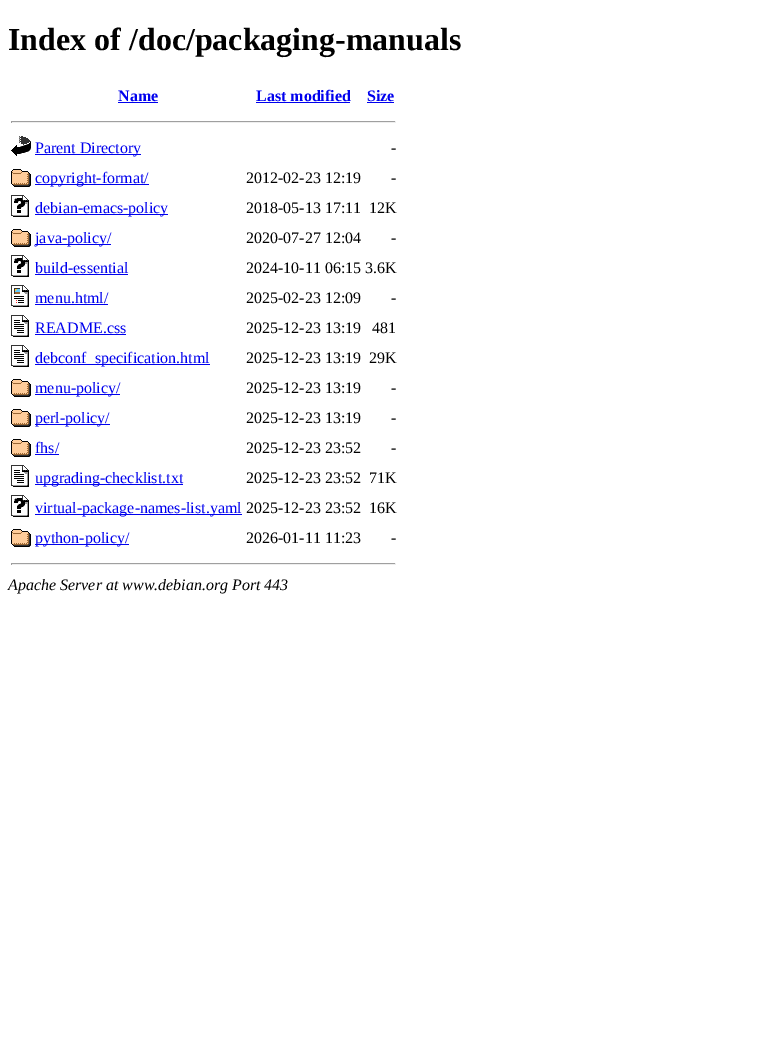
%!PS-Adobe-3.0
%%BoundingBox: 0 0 779 1041
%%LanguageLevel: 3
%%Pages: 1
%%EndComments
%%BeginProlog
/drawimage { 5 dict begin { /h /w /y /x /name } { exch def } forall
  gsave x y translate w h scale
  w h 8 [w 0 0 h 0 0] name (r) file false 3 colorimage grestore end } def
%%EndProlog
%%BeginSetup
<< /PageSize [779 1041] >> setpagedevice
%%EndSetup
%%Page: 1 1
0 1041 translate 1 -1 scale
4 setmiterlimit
1 setgray
0 0 779 1041 rectfill
0 0 0.933 setrgbcolor
118 102 40 1 rectfill
256 102 94 1 rectfill
367 102 27 1 rectfill
0.624 setgray
11 121 385 1 rectfill
0.933 setgray
395 121 1 2 rectfill
11 122 385 1 rectfill
0.624 setgray
11 121 1 2 rectfill
(images/1.raw) 11 136 20 20 drawimage
0 0 0.933 setrgbcolor
35 154 106 1 rectfill
(images/2.raw) 11 169 20 18 drawimage
35 184 114 1 rectfill
(images/3.raw) 11 195 18 22 drawimage
35 214 133 1 rectfill
(images/2.raw) 11 229 20 18 drawimage
35 244 76 1 rectfill
(images/3.raw) 11 255 18 22 drawimage
35 274 93 1 rectfill
(images/4.raw) 11 285 18 22 drawimage
35 304 73 1 rectfill
(images/5.raw) 11 315 18 22 drawimage
35 334 91 1 rectfill
(images/5.raw) 11 345 18 22 drawimage
35 364 175 1 rectfill
(images/2.raw) 11 379 20 18 drawimage
35 394 85 1 rectfill
(images/2.raw) 11 409 20 18 drawimage
35 424 75 1 rectfill
(images/2.raw) 11 439 20 18 drawimage
35 454 24 1 rectfill
(images/5.raw) 11 465 18 22 drawimage
35 484 148 1 rectfill
(images/3.raw) 11 495 18 22 drawimage
35 514 207 1 rectfill
(images/2.raw) 11 529 20 18 drawimage
35 544 94 1 rectfill
0.624 setgray
11 563 385 1 rectfill
0.933 setgray
395 563 1 2 rectfill
11 564 385 1 rectfill
0.624 setgray
11 563 1 2 rectfill
/LiberationSerif-Bold [32 0 0 -32 0 0] selectfont
0 setgray
8 50 moveto (Index of /doc/packaging-manuals) show
/LiberationSerif-Bold [16 0 0 -16 0 0] selectfont
0 0 0.933 setrgbcolor
118 101 moveto (Name) show
256 101 moveto (Last modified) show
367 101 moveto (Size) show
/LiberationSerif-Regular [16 0 0 -16 0 0] selectfont
35 153 moveto (Parent Directory) show
0 setgray
391 153 moveto (-) show
0 0 0.933 setrgbcolor
35 183 moveto (copyright-format/) show
0 setgray
246 183 moveto (2012-02-23 12:19) show
391 183 moveto (-) show
0 0 0.933 setrgbcolor
35 213 moveto (debian-emacs-policy) show
0 setgray
246 213 moveto (2018-05-13 17:11) show
369 213 moveto (12K) show
0 0 0.933 setrgbcolor
35 243 moveto (java-policy/) show
0 setgray
246 243 moveto (2020-07-27 12:04) show
391 243 moveto (-) show
0 0 0.933 setrgbcolor
35 273 moveto (build-essential) show
0 setgray
246 273 moveto (2024-10-11 06:15 3.6K) show
0 0 0.933 setrgbcolor
35 303 moveto (menu.html/) show
0 setgray
246 303 moveto (2025-02-23 12:09) show
391 303 moveto (-) show
0 0 0.933 setrgbcolor
35 333 moveto (README.css) show
0 setgray
246 333 moveto (2025-12-23 13:19) show
372 333 moveto (481) show
0 0 0.933 setrgbcolor
35 363 moveto (debconf_specification.html) show
0 setgray
246 363 moveto (2025-12-23 13:19) show
369 363 moveto (29K) show
0 0 0.933 setrgbcolor
35 393 moveto (menu-policy/) show
0 setgray
246 393 moveto (2025-12-23 13:19) show
391 393 moveto (-) show
0 0 0.933 setrgbcolor
35 423 moveto (perl-policy/) show
0 setgray
246 423 moveto (2025-12-23 13:19) show
391 423 moveto (-) show
0 0 0.933 setrgbcolor
35 453 moveto (fhs/) show
0 setgray
246 453 moveto (2025-12-23 23:52) show
391 453 moveto (-) show
0 0 0.933 setrgbcolor
35 483 moveto (upgrading-checklist.txt) show
0 setgray
246 483 moveto (2025-12-23 23:52) show
369 483 moveto (71K) show
0 0 0.933 setrgbcolor
35 513 moveto (virtual-package-names-list.yaml) show
0 setgray
246 513 moveto (2025-12-23 23:52) show
369 513 moveto (16K) show
0 0 0.933 setrgbcolor
35 543 moveto (python-policy/) show
0 setgray
246 543 moveto (2026-01-11 11:23) show
391 543 moveto (-) show
/LiberationSerif-Italic [16 0 0 -16 0 0] selectfont
8 590 moveto (Apache Server at www.debian.org Port 443) show
showpage
%%EOF
